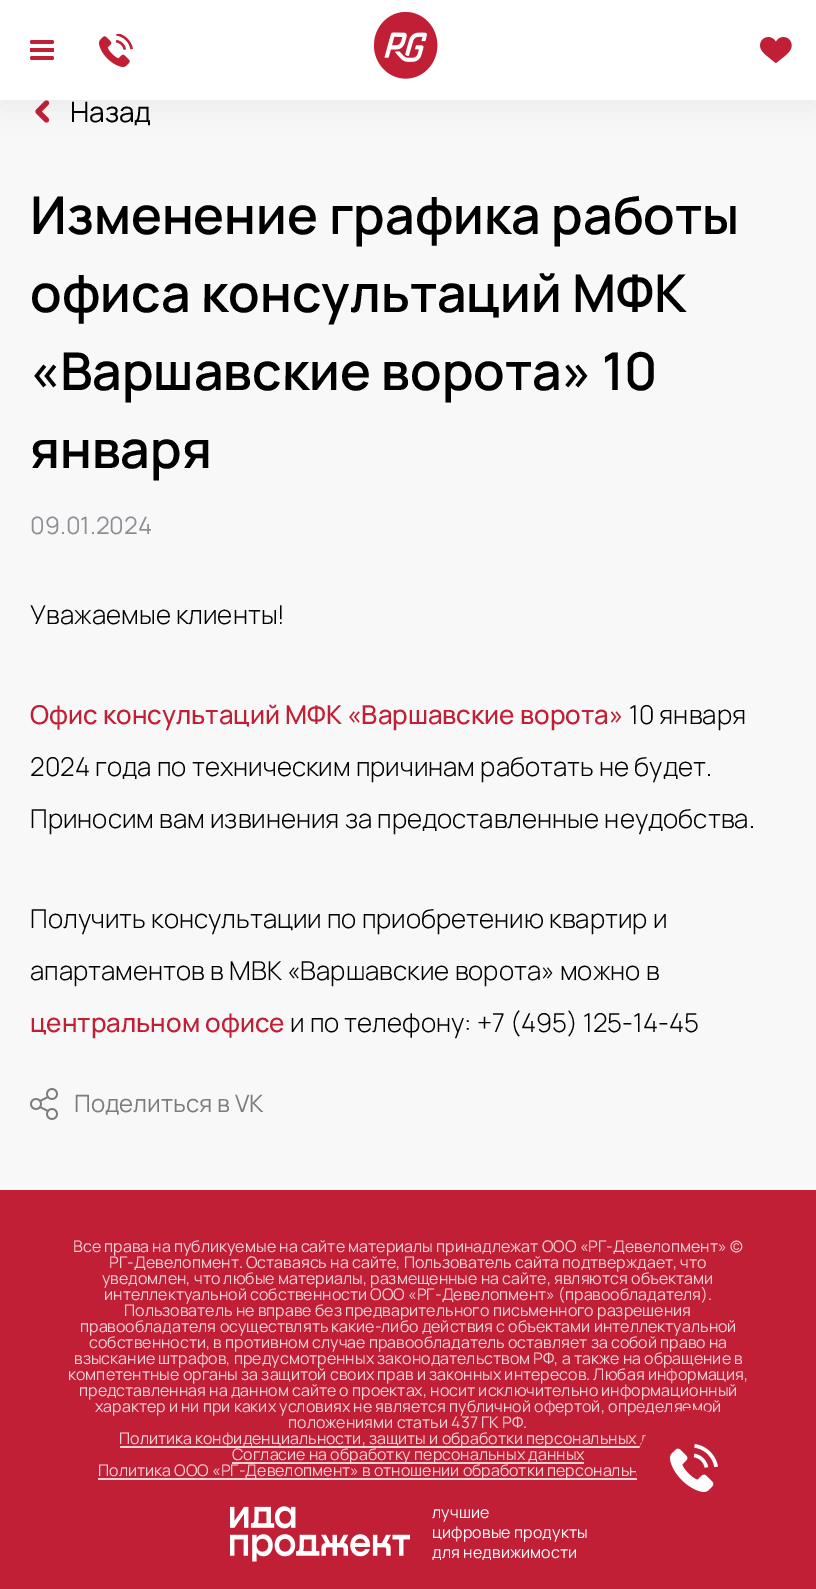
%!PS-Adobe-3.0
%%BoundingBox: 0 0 816 1589
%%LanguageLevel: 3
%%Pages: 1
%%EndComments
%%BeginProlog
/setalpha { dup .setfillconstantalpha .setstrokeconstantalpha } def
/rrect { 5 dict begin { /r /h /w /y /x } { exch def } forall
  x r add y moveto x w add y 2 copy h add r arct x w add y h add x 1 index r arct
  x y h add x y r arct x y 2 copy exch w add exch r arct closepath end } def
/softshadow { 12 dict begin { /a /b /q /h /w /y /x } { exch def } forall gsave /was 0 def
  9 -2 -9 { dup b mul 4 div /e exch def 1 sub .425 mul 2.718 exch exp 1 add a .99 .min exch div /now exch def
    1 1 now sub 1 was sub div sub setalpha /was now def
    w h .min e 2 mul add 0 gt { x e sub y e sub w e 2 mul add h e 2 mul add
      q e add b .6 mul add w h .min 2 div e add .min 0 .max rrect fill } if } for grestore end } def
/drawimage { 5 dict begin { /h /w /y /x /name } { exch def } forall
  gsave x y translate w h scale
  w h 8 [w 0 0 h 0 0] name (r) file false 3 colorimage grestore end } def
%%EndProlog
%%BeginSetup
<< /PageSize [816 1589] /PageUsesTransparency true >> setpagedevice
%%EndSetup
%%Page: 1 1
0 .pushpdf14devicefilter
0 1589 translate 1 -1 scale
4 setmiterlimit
0.973 setgray
0 0 816 1589 rectfill
0.757 0.122 0.212 setrgbcolor
5.1 setlinewidth
1 setlinecap
1 setlinejoin
newpath 46.5 120 moveto 38 111.5 lineto 46.5 103 lineto stroke
0 setgray
0 8 816 100 0 15 0.05 softshadow
1 setgray
0 0 816 100 rectfill
0.757 0.122 0.212 setrgbcolor
30 40 24 4 2 rrect fill
30 48 24 4 rectfill
30 56 24 4 2 rrect fill
(images/1.raw) 99 34 34 33 drawimage
(images/2.raw) 374 12 64 67 drawimage
(images/3.raw) 760 37 32 26 drawimage
(images/4.raw) 30 1088 28 32 drawimage
0 1190 816 399 rectfill
0.953 0.824 0.843 setrgbcolor
120 1446 521 2 rectfill
232 1462 352 2 rectfill
98 1478 540 2 rectfill
(images/5.raw) 230 1506 180 56 drawimage
/Manrope-Regular [28 0 0 -28 0 0] selectfont
0 setgray
70 122 moveto (Назад) show
/Manrope-SemiBold [52 0 0 -52 0 0] selectfont
30 234 moveto (Изменение графика работы) show
30 312 moveto (офиса консультаций МФК) show
30 390 moveto («Варшавские ворота» 10) show
30 468 moveto (января) show
/Manrope-Regular [24 0 0 -24 0 0] selectfont
0.545 0.557 0.58 setrgbcolor
30 534 moveto (09.01.2024) show
/Manrope-Light [26 0 0 -26 0 0] selectfont
0 setgray
30 624 moveto (Уважаемые клиенты!) show
/Manrope-Medium [26 0 0 -26 0 0] selectfont
0.757 0.122 0.212 setrgbcolor
30 724 moveto (Офис консультаций МФК «Варшавские ворота») show
/Manrope-Light [26 0 0 -26 0 0] selectfont
0 setgray
629 724 moveto (10 января) show
30 776 moveto (2024 года по техническим причинам работать не будет.) show
30 828 moveto (Приносим вам извинения за предоставленные неудобства.) show
30 928 moveto (Получить консультации по приобретению квартир и) show
30 980 moveto (апартаментов в МВК «Варшавские ворота» можно в) show
/Manrope-Medium [26 0 0 -26 0 0] selectfont
0.757 0.122 0.212 setrgbcolor
30 1032 moveto (центральном офисе) show
/Manrope-Light [26 0 0 -26 0 0] selectfont
0 setgray
290 1032 moveto (и по телефону: +7 \(495\) 125-14-45) show
/Manrope-Regular [24 0 0 -24 0 0] selectfont
0.486 setgray
74 1112 moveto (Поделиться в VK) show
/Manrope-Regular [16 0 0 -16 0 0] selectfont
0.953 0.824 0.843 setrgbcolor
73 1252 moveto (Все права на публикуемые на сайте материалы принадлежат ООО «РГ-Девелопмент» ©) show
109 1268 moveto (РГ-Девелопмент. Оставаясь на сайте, Пользователь сайта подтверждает, что) show
102 1284 moveto (уведомлен, что любые материалы, размещенные на сайте, являются объектами) show
104 1300 moveto (интеллектуальной собственности ООО «РГ-Девелопмент» \(правообладателя\).) show
124 1316 moveto (Пользователь не вправе без предварительного письменного разрешения) show
80 1332 moveto (правообладателя осуществлять какие-либо действия с объектами интеллектуальной) show
89 1348 moveto (собственности, в противном случае правообладатель оставляет за собой право на) show
74 1364 moveto (взыскание штрафов, предусмотренных законодательством РФ, а также на обращение в) show
68 1380 moveto (компетентные органы за защитой своих прав и законных интересов. Любая информация,) show
79 1396 moveto (представленная на данном сайте о проектах, носит исключительно информационный) show
95 1412 moveto (характер и ни при каких условиях не является публичной офертой, определяемой) show
288 1428 moveto (положениями статьи 437 ГК РФ.) show
119 1444 moveto (Политика конфиденциальности, защиты и обработки персональных д) show
232 1460 moveto (Согласие на обработку персональных данных) show
98 1476 moveto (Политика ООО «РГ-Девелопмент» в отношении обработки персональн) show
1 setgray
432 1518 moveto 0.1 0 (лучшие) ashow
432 1538 moveto 0.1 0 (цифровые продукты) ashow
432 1558 moveto 0.1 0 (для недвижимости) ashow
0.757 0.122 0.212 setrgbcolor
newpath 696 1470 56 0 360 arc closepath fill
newpath 694 1468 58 0 360 arc closepath fill
(images/6.raw) 670 1444 48 48 drawimage
.poppdf14devicefilter showpage
%%EOF
